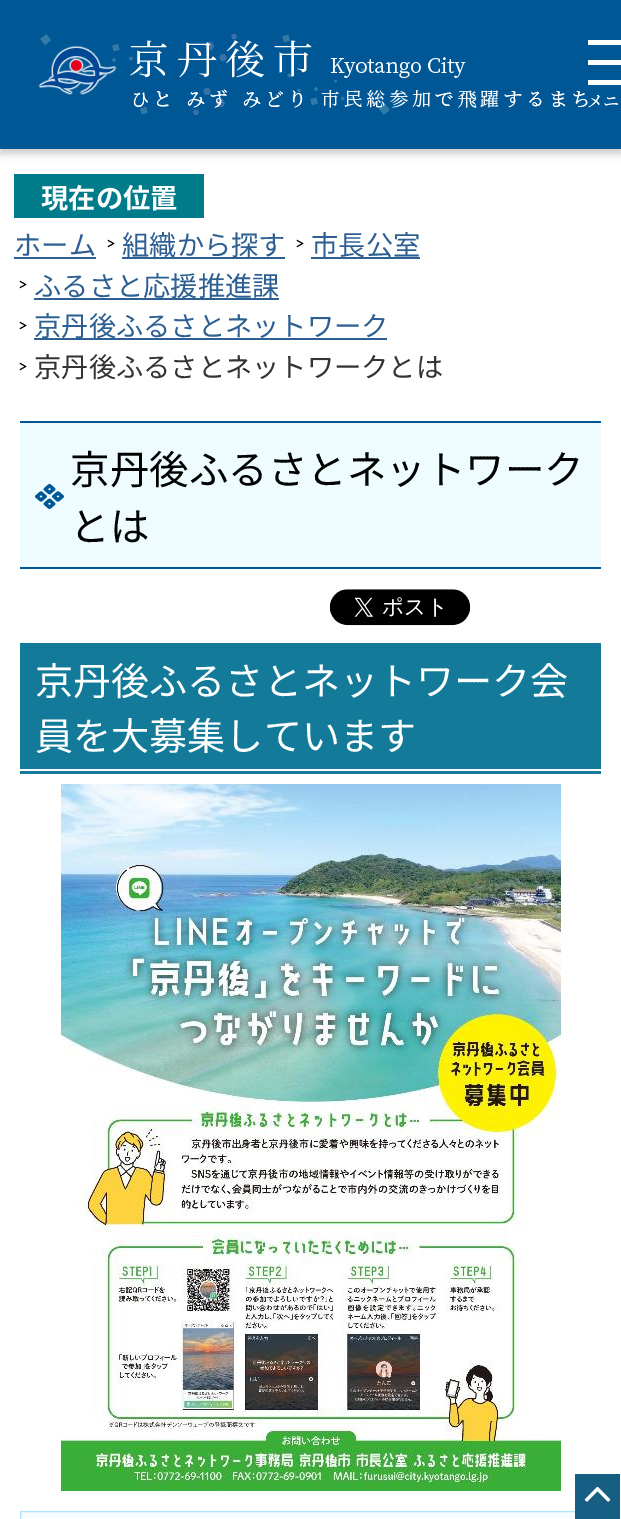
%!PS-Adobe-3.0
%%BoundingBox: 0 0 621 1519
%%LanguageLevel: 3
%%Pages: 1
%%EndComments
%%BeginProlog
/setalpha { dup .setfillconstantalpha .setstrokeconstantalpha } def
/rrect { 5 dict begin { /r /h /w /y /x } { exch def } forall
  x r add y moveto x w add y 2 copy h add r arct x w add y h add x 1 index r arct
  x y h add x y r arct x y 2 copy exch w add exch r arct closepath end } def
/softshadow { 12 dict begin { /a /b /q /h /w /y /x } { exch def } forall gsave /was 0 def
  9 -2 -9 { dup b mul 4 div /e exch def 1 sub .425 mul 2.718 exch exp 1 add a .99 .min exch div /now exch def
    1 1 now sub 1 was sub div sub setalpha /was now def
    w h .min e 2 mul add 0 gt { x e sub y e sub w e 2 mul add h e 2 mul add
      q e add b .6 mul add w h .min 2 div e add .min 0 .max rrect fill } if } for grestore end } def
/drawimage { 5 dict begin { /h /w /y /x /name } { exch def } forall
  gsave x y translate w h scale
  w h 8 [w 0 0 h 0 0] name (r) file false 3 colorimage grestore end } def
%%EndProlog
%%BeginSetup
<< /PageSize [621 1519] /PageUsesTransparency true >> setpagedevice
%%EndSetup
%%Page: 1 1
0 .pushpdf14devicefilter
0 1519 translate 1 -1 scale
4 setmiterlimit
1 setgray
0 0 621 1519 rectfill
0 setgray
0 3 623 151 0 4 0.2 softshadow
0 0.341 0.588 setrgbcolor
0 0 621 149 rectfill
(images/1.raw) 38 34 550 81 drawimage
(images/2.raw) 588 40 33 68 drawimage
0 0.482 0.541 setrgbcolor
14 174 190 44 rectfill
0.176 0.373 0.573 setrgbcolor
14 257 82 2 rectfill
(images/3.raw) 107 239 8 9 drawimage
122 257 163 2 rectfill
(images/3.raw) 296 239 8 9 drawimage
311 257 109 2 rectfill
(images/3.raw) 19 280 8 9 drawimage
34 298 245 2 rectfill
(images/3.raw) 19 321 8 9 drawimage
34 338 353 2 rectfill
(images/3.raw) 19 362 8 9 drawimage
0.933 0.988 1 setrgbcolor
20 423 581 144 rectfill
0 0.341 0.584 setrgbcolor
20 421 581 2 rectfill
20 567 581 2 rectfill
(images/4.raw) 35 484 29 25 drawimage
(images/5.raw) 329 589 142 37 drawimage
0.075 0.482 0.6 setrgbcolor
20 643 581 131 rectfill
1 setgray
20 769 581 2 rectfill
(images/6.raw) 61 784 500 707 drawimage
0.965 0.988 1 setrgbcolor
20 1512 555 7 rectfill
0.675 0.89 1 setrgbcolor
20.5 1511.5 580 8 rectstroke
(images/7.raw) 575 1474 45 45 drawimage
/NotoSansCJKJP-Bold [27.25 0 0 -27.25 0 0] selectfont
1 setgray
41 208 moveto (現在の位置) show
/NotoSansCJKJP-Regular [27.25 0 0 -27.25 0 0] selectfont
0.176 0.373 0.573 setrgbcolor
14 255 moveto (ホーム) show
122 255 moveto (組織から探す) show
311 255 moveto (市長公室) show
34 296 moveto (ふるさと応援推進課) show
34 336 moveto (京丹後ふるさとネットワーク) show
0.2 setgray
34 377 moveto (京丹後ふるさとネットワークとは) show
/NotoSansCJKJP-Regular [39.5 0 0 -39.5 0 0] selectfont
0 0.012 0.008 setrgbcolor
70 484 moveto (京丹後ふるさとネットワーク) show
70 541 moveto (とは) show
/NotoSansCJKJP-Regular [38.1 0 0 -38.1 0 0] selectfont
1 setgray
35 695 moveto (京丹後ふるさとネットワーク会) show
35 750 moveto (員を大募集しています) show
.poppdf14devicefilter showpage
%%EOF
